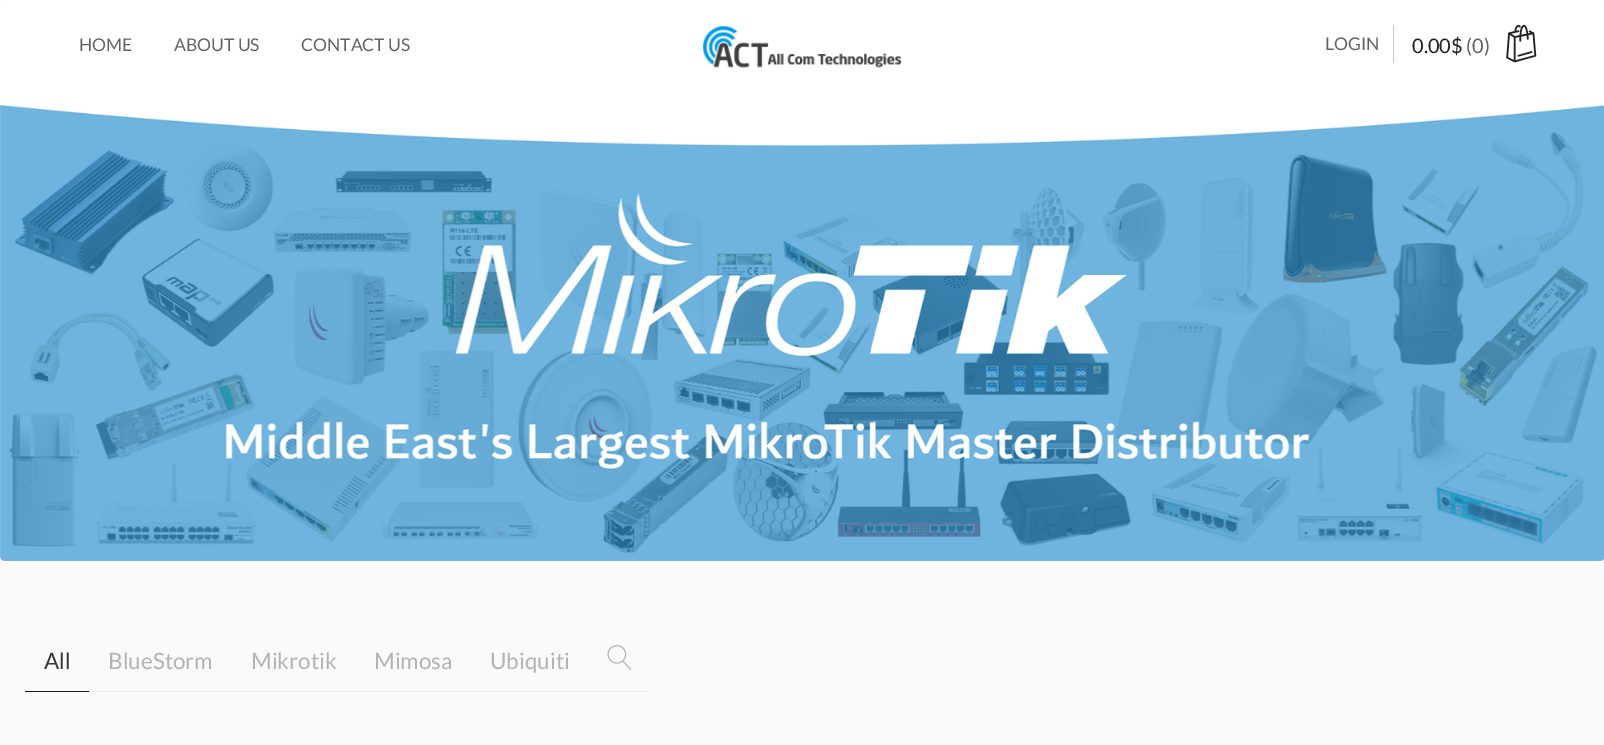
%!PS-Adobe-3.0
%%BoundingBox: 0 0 1604 745
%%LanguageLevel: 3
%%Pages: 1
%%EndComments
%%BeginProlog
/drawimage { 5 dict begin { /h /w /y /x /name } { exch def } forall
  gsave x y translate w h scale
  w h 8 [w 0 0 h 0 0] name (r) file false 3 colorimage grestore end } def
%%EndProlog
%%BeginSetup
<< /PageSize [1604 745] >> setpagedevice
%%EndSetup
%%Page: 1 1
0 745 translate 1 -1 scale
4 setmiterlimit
0.98 setgray
0 0 1604 745 rectfill
(images/1.raw) 0 0 1604 561 drawimage
(images/2.raw) 703 26 199 42 drawimage
0.792 setgray
1393 25 1 38 rectfill
(images/3.raw) 1506 24 31 39 drawimage
0.098 setgray
25 691 64 1 rectfill
0.933 setgray
89 691 562 1 rectfill
(images/4.raw) 607 645 25 25 drawimage
/Lato-Regular [17.5 0 0 -17.5 0 0] selectfont
0.392 setgray
79 51 moveto (HOME) show
174 51 moveto (ABOUT US) show
301 51 moveto (CONTACT US) show
1325 50 moveto (LOGIN) show
/Lato-Regular [20 0 0 -20 0 0] selectfont
0.133 setgray
1412 53 moveto (0.00$) show
0.392 setgray
1466 53 moveto (\(0\)) show
/Lato-Regular [22.5 0 0 -22.5 0 0] selectfont
0.22 setgray
44 669 moveto (All) show
0.702 setgray
108 669 moveto (BlueStorm) show
251 669 moveto (Mikrotik) show
374 669 moveto (Mimosa) show
490 669 moveto (Ubiquiti) show
showpage
%%EOF
